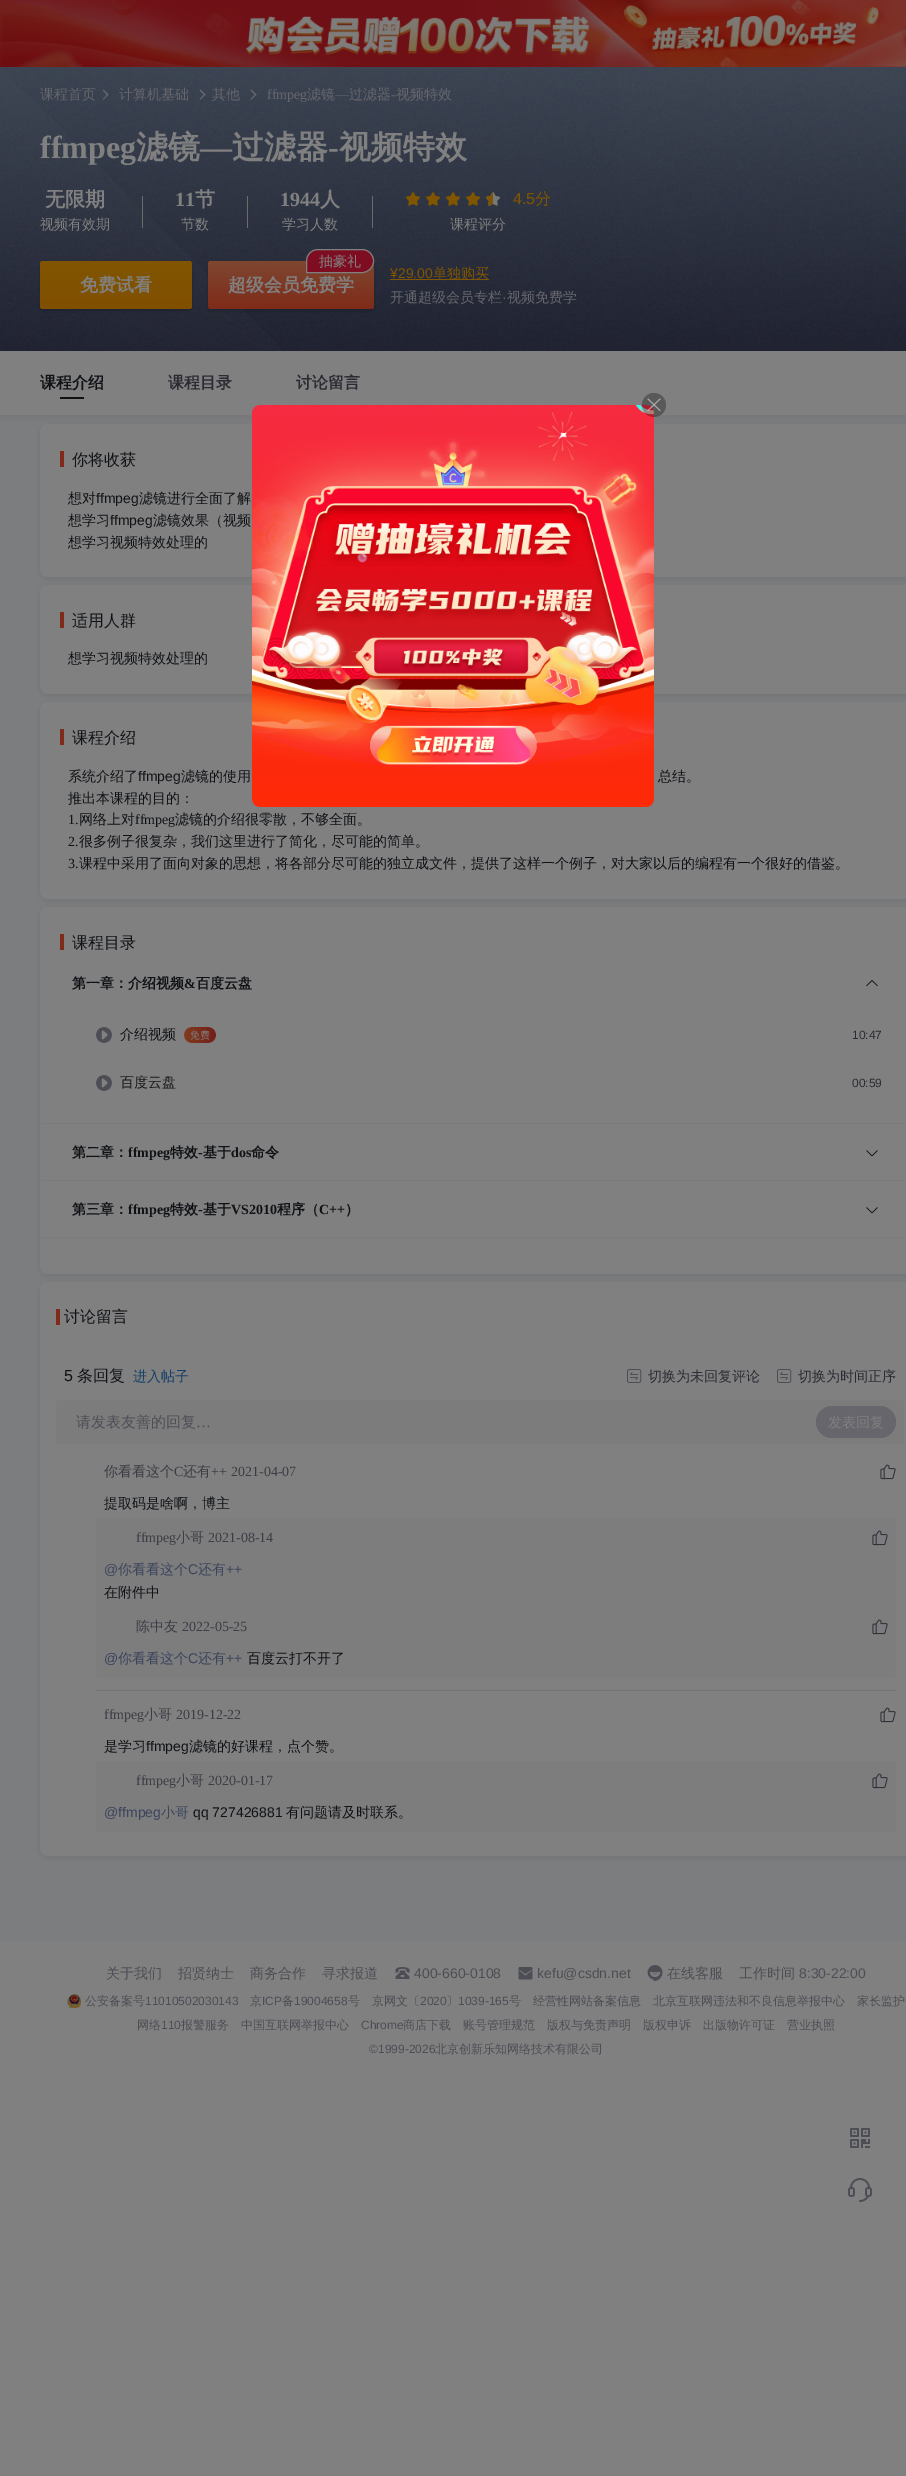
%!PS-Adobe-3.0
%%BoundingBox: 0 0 906 2476
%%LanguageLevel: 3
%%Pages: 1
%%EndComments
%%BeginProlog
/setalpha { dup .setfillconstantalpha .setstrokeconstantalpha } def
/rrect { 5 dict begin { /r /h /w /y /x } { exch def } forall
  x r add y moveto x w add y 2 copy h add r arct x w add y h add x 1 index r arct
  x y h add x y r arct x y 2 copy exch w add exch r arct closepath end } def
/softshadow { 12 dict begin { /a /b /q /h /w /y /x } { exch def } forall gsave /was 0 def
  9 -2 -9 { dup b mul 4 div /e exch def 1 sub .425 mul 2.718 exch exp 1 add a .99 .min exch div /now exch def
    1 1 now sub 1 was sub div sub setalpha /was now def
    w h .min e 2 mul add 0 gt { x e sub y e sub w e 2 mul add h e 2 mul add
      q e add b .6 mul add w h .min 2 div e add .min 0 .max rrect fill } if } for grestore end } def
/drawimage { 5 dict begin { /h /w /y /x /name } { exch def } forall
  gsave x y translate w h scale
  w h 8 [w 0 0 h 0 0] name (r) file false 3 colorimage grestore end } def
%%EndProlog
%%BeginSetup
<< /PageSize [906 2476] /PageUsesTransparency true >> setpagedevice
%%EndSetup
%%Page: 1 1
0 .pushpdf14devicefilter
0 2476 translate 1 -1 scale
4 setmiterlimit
0.502 setgray
0 0 906 2476 rectfill
(images/1.raw) 0 0 906 67 drawimage
(images/2.raw) 0 67 906 284 drawimage
0.4 0.4 0.424 setrgbcolor
newpath 103.5 89.5 moveto 108.5 94.5 lineto 107.5 95.5 lineto 103 90.5 lineto closepath fill
newpath 107.5 94 moveto 108.5 94.5 lineto 103.5 99.5 lineto 103 99 lineto closepath fill
newpath 200.5 89.5 moveto 205.5 94.5 lineto 204.5 95.5 lineto 199.5 90.5 lineto closepath fill
newpath 204.5 94 moveto 205.5 94.5 lineto 200.5 99.5 lineto 199.5 99 lineto closepath 251.5 89.5 moveto 256.5 94.5 lineto 255.5 95.5 lineto 250.5 90.5 lineto closepath fill
newpath 255.5 94 moveto 256.5 94.5 lineto 251.5 99.5 lineto 250.5 99 lineto closepath fill
0.424 setgray
142 196 1 32 rectfill
247 196 1 32 rectfill
372 196 1 32 rectfill
(images/3.raw) 406 192 14 14 drawimage
(images/4.raw) 426 192 14 14 drawimage
(images/5.raw) 446 192 14 14 drawimage
(images/6.raw) 466 192 14 14 drawimage
(images/7.raw) 486 192 14 14 drawimage
(images/8.raw) 486 192 7 14 drawimage
0 setgray
40 263 152 48 4 2 0.2 softshadow
gsave 40 261 152 48 4 rrect clip newpath
<< /ShadingType 2 /ColorSpace /DeviceRGB /Coords [116 309 116 261] /Extend [true true] /Function << /FunctionType 2 /Domain [0 1] /C0 [0.502 0.314 0] /C1 [0.502 0.333 0] /N 1 >> >> shfill grestore
208 263 166 48 4 2 0.2 softshadow
gsave 208 261 166 48 4 rrect clip newpath
<< /ShadingType 2 /ColorSpace /DeviceRGB /Coords [291 261 291 309] /Extend [true true] /Function << /FunctionType 2 /Domain [0 1] /C0 [0.498 0.278 0.188] /C1 [0.494 0.169 0.098] /N 1 >> >> shfill grestore
0.494 0.051 0.133 setrgbcolor
newpath 318 249.5 moveto 362 249.5 lineto 368.5 249.5 373.5 254.5 373.5 261 curveto 373.5 267.5 368.5 272.5 362 272.5 curveto 306.5 272.5 lineto 306.5 261 lineto 306.5 254.5 311.5 249.5 318 249.5 curveto closepath gsave fill grestore
0.502 setgray
stroke
0.502 0.333 0 setrgbcolor
390 279 99 1 rectfill
0.067 0.067 0.075 setrgbcolor
60 397 24 2 1 rrect fill
gsave newpath 0 415 moveto 906 415 lineto 906 423 lineto 0 423 lineto closepath clip newpath
<< /ShadingType 2 /ColorSpace /DeviceRGB /Coords [640 415 640 423] /Extend [true true] /Function << /FunctionType 2 /Domain [0 1] /C0 [0.471 0.471 0.482] /C1 [0.486 0.49 0.494] /N 1 >> >> shfill grestore
0.486 0.49 0.494 setrgbcolor
0 423 906 1518 rectfill
0.016 0.035 0.055 setrgbcolor
40 426 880 153 8 4 0.1 softshadow
0.502 setgray
40 424 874 153 8 rrect fill
0.016 0.035 0.055 setrgbcolor
40 587 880 109 8 4 0.1 softshadow
0.502 setgray
40 585 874 109 8 rrect fill
0.016 0.035 0.055 setrgbcolor
40 704 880 197 8 4 0.1 softshadow
0.502 setgray
40 702 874 197 8 rrect fill
(images/10.raw) 252 405 402 402 drawimage
0.3 setalpha
0 setgray
newpath 654 405 12 0 360 arc closepath fill
1 setalpha
(images/9.raw) 647 398 14 13 drawimage
0.494 0.169 0.098 setrgbcolor
60 451 4 16 rectfill
60 612 4 16 rectfill
60 729 4 16 rectfill
0.016 0.035 0.055 setrgbcolor
40 1284 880 574 8 4 0.1 softshadow
0.502 setgray
40 1282 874 574 8 rrect fill
0.016 0.035 0.055 setrgbcolor
40 909 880 367 8 4 0.1 softshadow
0.502 setgray
40 907 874 367 8 rrect fill
0.494 0.169 0.098 setrgbcolor
60 934 4 16 rectfill
0.482 0.482 0.486 setrgbcolor
41 1123 865 1 rectfill
(images/11.raw) 866 980 12 7 drawimage
(images/12.raw) 96 1027 16 16 drawimage
(images/13.raw) 184 1027 32 16 drawimage
(images/12.raw) 96 1075 16 16 drawimage
41 1180 865 1 rectfill
(images/14.raw) 866 1150 12 7 drawimage
41 1237 865 1 rectfill
(images/14.raw) 866 1207 12 7 drawimage
0.494 0.169 0.098 setrgbcolor
56 1309 4 16 rectfill
(images/15.raw) 627 1369 15 14 drawimage
(images/15.raw) 777 1369 15 14 drawimage
0.486 0.486 0.49 setrgbcolor
56 1400 848 44 4 rrect fill
0.4 0.4 0.424 setrgbcolor
816 1406 80 32 16 rrect fill
(images/16.raw) 880 1464 16 16 drawimage
0.49 0.49 0.494 setrgbcolor
96 1518 800 160 4 rrect fill
(images/17.raw) 872 1530 16 16 drawimage
(images/17.raw) 872 1619 16 16 drawimage
0.455 0.455 0.467 setrgbcolor
96 1690 800 1 rectfill
(images/16.raw) 880 1707 16 16 drawimage
0.49 0.49 0.494 setrgbcolor
96 1761 800 71 4 rrect fill
(images/17.raw) 872 1773 16 16 drawimage
(images/18.raw) 850 2128 20 20 drawimage
(images/19.raw) 848 2178 24 24 drawimage
(images/20.raw) 395 1967 15 12 drawimage
(images/21.raw) 518 1967 15 13 drawimage
(images/22.raw) 647 1965 16 16 drawimage
(images/23.raw) 67 1994 14 14 drawimage
/WenQuanYiZenHei-Medium [14 0 0 -14 0 0] selectfont
0.4 0.4 0.424 setrgbcolor
40 99 moveto (课程首页) show
119 99 moveto (计算机基础) show
212 99 moveto (其他) show
/LiberationSerif-Regular [14 0 0 -14 0 0] selectfont
267 99 moveto (ffmpeg) show
/WenQuanYiZenHei-Medium [14 0 0 -14 0 0] selectfont
307 99 moveto (滤镜) show
/LiberationSerif-Regular [14 0 0 -14 0 0] selectfont
335 99 moveto (—) show
/WenQuanYiZenHei-Medium [14 0 0 -14 0 0] selectfont
349 99 moveto (过滤器) show
/LiberationSerif-Regular [14 0 0 -14 0 0] selectfont
391 99 moveto (-) show
/WenQuanYiZenHei-Medium [14 0 0 -14 0 0] selectfont
396 99 moveto (视频特效) show
/LiberationSerif-Bold [32 0 0 -32 0 0] selectfont
0.502 setgray
40 158 moveto (ffmpeg) show
/WenQuanYiZenHei-Bold [32 0 0 -32 0 0] selectfont
136 158 moveto (滤镜) show
/LiberationSerif-Bold [32 0 0 -32 0 0] selectfont
200 158 moveto (—) show
/WenQuanYiZenHei-Bold [32 0 0 -32 0 0] selectfont
232 158 moveto (过滤器) show
/LiberationSerif-Bold [32 0 0 -32 0 0] selectfont
328 158 moveto (-) show
/WenQuanYiZenHei-Bold [32 0 0 -32 0 0] selectfont
339 158 moveto (视频特效) show
/WenQuanYiZenHei-Bold [20 0 0 -20 0 0] selectfont
45 206 moveto (无限期) show
/WenQuanYiZenHei-Medium [14 0 0 -14 0 0] selectfont
40 229 moveto (视频有效期) show
/LiberationSerif-Bold [20 0 0 -20 0 0] selectfont
175 206 moveto (11) show
/WenQuanYiZenHei-Bold [20 0 0 -20 0 0] selectfont
195 206 moveto (节) show
/WenQuanYiZenHei-Medium [14 0 0 -14 0 0] selectfont
181 229 moveto (节数) show
/LiberationSerif-Bold [20 0 0 -20 0 0] selectfont
280 206 moveto (1944) show
/WenQuanYiZenHei-Bold [20 0 0 -20 0 0] selectfont
320 206 moveto (人) show
/WenQuanYiZenHei-Medium [14 0 0 -14 0 0] selectfont
282 229 moveto (学习人数) show
/LiberationSans-Regular [16 0 0 -16 0 0] selectfont
0.502 0.333 0 setrgbcolor
513 204 moveto (4.5) show
/WenQuanYiZenHei-Medium [16 0 0 -16 0 0] selectfont
535 204 moveto (分) show
/WenQuanYiZenHei-Medium [14 0 0 -14 0 0] selectfont
0.502 setgray
450 229 moveto (课程评分) show
/WenQuanYiZenHei-Bold [18 0 0 -18 0 0] selectfont
80 291 moveto (免费试看) show
/WenQuanYiZenHei-Medium [14 0 0 -14 0 0] selectfont
319 266 moveto (抽豪礼) show
/WenQuanYiZenHei-Bold [18 0 0 -18 0 0] selectfont
228 291 moveto (超级会员免费学) show
/LiberationSans-Regular [14 0 0 -14 0 0] selectfont
0.502 0.333 0 setrgbcolor
390 278 moveto (¥29.00) show
/WenQuanYiZenHei-Medium [14 0 0 -14 0 0] selectfont
433 278 moveto (单独购买) show
0.4 0.4 0.424 setrgbcolor
390 302 moveto (开通超级会员专栏) show
/LiberationSans-Regular [14 0 0 -14 0 0] selectfont
502 302 moveto (·) show
/WenQuanYiZenHei-Medium [14 0 0 -14 0 0] selectfont
507 302 moveto (视频免费学) show
/WenQuanYiZenHei-Bold [16 0 0 -16 0 0] selectfont
0.063 0.071 0.086 setrgbcolor
40 388 moveto (课程介绍) show
0.169 0.169 0.2 setrgbcolor
168 388 moveto (课程目录) show
296 388 moveto (讨论留言) show
/WenQuanYiZenHei-Medium [16 0 0 -16 0 0] selectfont
0.063 0.071 0.086 setrgbcolor
72 465 moveto (你将收获) show
/WenQuanYiZenHei-Medium [14 0 0 -14 0 0] selectfont
68 503 moveto (想对) show
/LiberationSans-Regular [14 0 0 -14 0 0] selectfont
96 503 moveto (ffmpeg) show
/WenQuanYiZenHei-Medium [14 0 0 -14 0 0] selectfont
139 503 moveto (滤镜进行全面了解) show
68 525 moveto (想学习) show
/LiberationSans-Regular [14 0 0 -14 0 0] selectfont
110 525 moveto (ffmpeg) show
/WenQuanYiZenHei-Medium [14 0 0 -14 0 0] selectfont
153 525 moveto (滤镜效果（视频) show
68 547 moveto (想学习视频特效处理的) show
/WenQuanYiZenHei-Medium [16 0 0 -16 0 0] selectfont
72 626 moveto (适用人群) show
/WenQuanYiZenHei-Medium [14 0 0 -14 0 0] selectfont
68 663 moveto (想学习视频特效处理的) show
/WenQuanYiZenHei-Medium [16 0 0 -16 0 0] selectfont
72 743 moveto (课程介绍) show
/WenQuanYiZenHei-Medium [14 0 0 -14 0 0] selectfont
68 781 moveto (系统介绍了) show
/LiberationSans-Regular [14 0 0 -14 0 0] selectfont
138 781 moveto (ffmpeg) show
/WenQuanYiZenHei-Medium [14 0 0 -14 0 0] selectfont
181 781 moveto (滤镜的使用) show
658 781 moveto (总结。) show
68 803 moveto (推出本课程的目的：) show
/LiberationSerif-Regular [14 0 0 -14 0 0] selectfont
68 824 moveto (1.) show
/WenQuanYiZenHei-Medium [14 0 0 -14 0 0] selectfont
79 824 moveto (网络上对) show
/LiberationSerif-Regular [14 0 0 -14 0 0] selectfont
135 824 moveto (ffmpeg) show
/WenQuanYiZenHei-Medium [14 0 0 -14 0 0] selectfont
175 824 moveto (滤镜的介绍很零散，不够全面。) show
/LiberationSerif-Regular [14 0 0 -14 0 0] selectfont
68 846 moveto (2.) show
/WenQuanYiZenHei-Medium [14 0 0 -14 0 0] selectfont
79 846 moveto (很多例子很复杂，我们这里进行了简化，尽可能的简单。) show
/LiberationSerif-Regular [14 0 0 -14 0 0] selectfont
68 868 moveto (3.) show
/WenQuanYiZenHei-Medium [14 0 0 -14 0 0] selectfont
79 868 moveto (课程中采用了面向对象的思想，将各部分尽可能的独立成文件，提供了这样一个例子，对大家以后的编程有一个很好的借鉴。) show
/WenQuanYiZenHei-Medium [16 0 0 -16 0 0] selectfont
72 948 moveto (课程目录) show
/WenQuanYiZenHei-Bold [14 0 0 -14 0 0] selectfont
72 988 moveto (第一章：介绍视频) show
/LiberationSerif-Bold [14 0 0 -14 0 0] selectfont
184 988 moveto (&) show
/WenQuanYiZenHei-Bold [14 0 0 -14 0 0] selectfont
196 988 moveto (百度云盘) show
/WenQuanYiZenHei-Medium [14 0 0 -14 0 0] selectfont
120 1039 moveto (介绍视频) show
/LiberationSans-Regular [12 0 0 -12 0 0] selectfont
0.169 0.169 0.2 setrgbcolor
852 1039 moveto (10:47) show
/WenQuanYiZenHei-Medium [14 0 0 -14 0 0] selectfont
0.094 0.098 0.102 setrgbcolor
120 1087 moveto (百度云盘) show
/LiberationSans-Regular [12 0 0 -12 0 0] selectfont
0.169 0.169 0.2 setrgbcolor
852 1087 moveto (00:59) show
/WenQuanYiZenHei-Bold [14 0 0 -14 0 0] selectfont
0.063 0.071 0.086 setrgbcolor
72 1157 moveto (第二章：) show
/LiberationSerif-Bold [14 0 0 -14 0 0] selectfont
128 1157 moveto (ffmpeg) show
/WenQuanYiZenHei-Bold [14 0 0 -14 0 0] selectfont
170 1157 moveto (特效) show
/LiberationSerif-Bold [14 0 0 -14 0 0] selectfont
198 1157 moveto (-) show
/WenQuanYiZenHei-Bold [14 0 0 -14 0 0] selectfont
203 1157 moveto (基于) show
/LiberationSerif-Bold [14 0 0 -14 0 0] selectfont
231 1157 moveto (dos) show
/WenQuanYiZenHei-Bold [14 0 0 -14 0 0] selectfont
251 1157 moveto (命令) show
72 1214 moveto (第三章：) show
/LiberationSerif-Bold [14 0 0 -14 0 0] selectfont
128 1214 moveto (ffmpeg) show
/WenQuanYiZenHei-Bold [14 0 0 -14 0 0] selectfont
170 1214 moveto (特效) show
/LiberationSerif-Bold [14 0 0 -14 0 0] selectfont
198 1214 moveto (-) show
/WenQuanYiZenHei-Bold [14 0 0 -14 0 0] selectfont
203 1214 moveto (基于) show
/LiberationSerif-Bold [14 0 0 -14 0 0] selectfont
231 1214 moveto (VS2010) show
/WenQuanYiZenHei-Bold [14 0 0 -14 0 0] selectfont
277 1214 moveto (程序（) show
/LiberationSerif-Bold [14 0 0 -14 0 0] selectfont
319 1214 moveto (C++) show
/WenQuanYiZenHei-Bold [14 0 0 -14 0 0] selectfont
345 1214 moveto (）) show
/WenQuanYiZenHei-Medium [16 0 0 -16 0 0] selectfont
64 1322 moveto (讨论留言) show
/LiberationSans-Regular [16 0 0 -16 0 0] selectfont
64 1381 moveto (5) show
/WenQuanYiZenHei-Medium [16 0 0 -16 0 0] selectfont
77 1381 moveto (条回复) show
/WenQuanYiZenHei-Medium [14 0 0 -14 0 0] selectfont
0.078 0.243 0.4 setrgbcolor
133 1381 moveto (进入帖子) show
0.169 0.169 0.2 setrgbcolor
648 1381 moveto (切换为未回复评论) show
798 1381 moveto (切换为时间正序) show
/WenQuanYiZenHei-Medium [15 0 0 -15 0 0] selectfont
0.302 0.302 0.333 setrgbcolor
76 1427 moveto (请发表友善的回复) show
/LiberationSerif-Regular [15 0 0 -15 0 0] selectfont
196 1427 moveto (…) show
/WenQuanYiZenHei-Medium [14 0 0 -14 0 0] selectfont
0.502 setgray
828 1427 moveto (发表回复) show
0.235 0.235 0.267 setrgbcolor
104 1476 moveto (你看看这个) show
/LiberationSerif-Regular [14 0 0 -14 0 0] selectfont
174 1476 moveto (C) show
/WenQuanYiZenHei-Medium [14 0 0 -14 0 0] selectfont
183 1476 moveto (还有) show
/LiberationSerif-Regular [14 0 0 -14 0 0] selectfont
211 1476 moveto (++) show
231 1476 moveto (2021-04-07) show
/WenQuanYiZenHei-Medium [14 0 0 -14 0 0] selectfont
0.063 0.071 0.086 setrgbcolor
104 1508 moveto (提取码是啥啊，博主) show
/LiberationSerif-Regular [14 0 0 -14 0 0] selectfont
0.235 0.235 0.267 setrgbcolor
136 1542 moveto (ffmpeg) show
/WenQuanYiZenHei-Medium [14 0 0 -14 0 0] selectfont
176 1542 moveto (小哥) show
/LiberationSerif-Regular [14 0 0 -14 0 0] selectfont
208 1542 moveto (2021-08-14) show
/LiberationSans-Regular [14 0 0 -14 0 0] selectfont
0.235 0.267 0.357 setrgbcolor
104 1574 moveto (@) show
/WenQuanYiZenHei-Medium [14 0 0 -14 0 0] selectfont
118 1574 moveto (你看看这个) show
/LiberationSans-Regular [14 0 0 -14 0 0] selectfont
188 1574 moveto (C) show
/WenQuanYiZenHei-Medium [14 0 0 -14 0 0] selectfont
198 1574 moveto (还有) show
/LiberationSans-Regular [14 0 0 -14 0 0] selectfont
226 1574 moveto (++) show
/WenQuanYiZenHei-Medium [14 0 0 -14 0 0] selectfont
0.063 0.071 0.086 setrgbcolor
104 1597 moveto (在附件中) show
0.235 0.235 0.267 setrgbcolor
136 1631 moveto (陈中友) show
/LiberationSerif-Regular [14 0 0 -14 0 0] selectfont
182 1631 moveto (2022-05-25) show
/LiberationSans-Regular [14 0 0 -14 0 0] selectfont
0.235 0.267 0.357 setrgbcolor
104 1663 moveto (@) show
/WenQuanYiZenHei-Medium [14 0 0 -14 0 0] selectfont
118 1663 moveto (你看看这个) show
/LiberationSans-Regular [14 0 0 -14 0 0] selectfont
188 1663 moveto (C) show
/WenQuanYiZenHei-Medium [14 0 0 -14 0 0] selectfont
198 1663 moveto (还有) show
/LiberationSans-Regular [14 0 0 -14 0 0] selectfont
226 1663 moveto (++) show
/WenQuanYiZenHei-Medium [14 0 0 -14 0 0] selectfont
0.063 0.071 0.086 setrgbcolor
247 1663 moveto (百度云打不开了) show
/LiberationSerif-Regular [14 0 0 -14 0 0] selectfont
0.235 0.235 0.267 setrgbcolor
104 1719 moveto (ffmpeg) show
/WenQuanYiZenHei-Medium [14 0 0 -14 0 0] selectfont
144 1719 moveto (小哥) show
/LiberationSerif-Regular [14 0 0 -14 0 0] selectfont
176 1719 moveto (2019-12-22) show
/WenQuanYiZenHei-Medium [14 0 0 -14 0 0] selectfont
0.063 0.071 0.086 setrgbcolor
104 1751 moveto (是学习) show
/LiberationSans-Regular [14 0 0 -14 0 0] selectfont
146 1751 moveto (ffmpeg) show
/WenQuanYiZenHei-Medium [14 0 0 -14 0 0] selectfont
189 1751 moveto (滤镜的好课程，点个赞。) show
/LiberationSerif-Regular [14 0 0 -14 0 0] selectfont
0.235 0.235 0.267 setrgbcolor
136 1785 moveto (ffmpeg) show
/WenQuanYiZenHei-Medium [14 0 0 -14 0 0] selectfont
176 1785 moveto (小哥) show
/LiberationSerif-Regular [14 0 0 -14 0 0] selectfont
208 1785 moveto (2020-01-17) show
/LiberationSans-Regular [14 0 0 -14 0 0] selectfont
0.235 0.267 0.357 setrgbcolor
104 1817 moveto (@ffmpeg) show
/WenQuanYiZenHei-Medium [14 0 0 -14 0 0] selectfont
161 1817 moveto (小哥) show
/LiberationSans-Regular [14 0 0 -14 0 0] selectfont
0.063 0.071 0.086 setrgbcolor
193 1817 moveto (qq 727426881) show
/WenQuanYiZenHei-Medium [14 0 0 -14 0 0] selectfont
286 1817 moveto (有问题请及时联系。) show
0.302 0.302 0.333 setrgbcolor
106 1978 moveto (关于我们) show
178 1978 moveto (招贤纳士) show
250 1978 moveto (商务合作) show
322 1978 moveto (寻求报道) show
/LiberationSans-Regular [14 0 0 -14 0 0] selectfont
414 1978 moveto (400-660-0108) show
537 1978 moveto (kefu@csdn.net) show
/WenQuanYiZenHei-Medium [14 0 0 -14 0 0] selectfont
667 1978 moveto (在线客服) show
739 1978 moveto (工作时间) show
/LiberationSans-Regular [14 0 0 -14 0 0] selectfont
799 1978 moveto (8:30-22:00) show
/WenQuanYiZenHei-Medium [12 0 0 -12 0 0] selectfont
85 2005 moveto (公安备案号) show
/LiberationSans-Regular [12 0 0 -12 0 0] selectfont
145 2005 moveto (11010502030143) show
/WenQuanYiZenHei-Medium [12 0 0 -12 0 0] selectfont
250 2005 moveto (京) show
/LiberationSans-Regular [12 0 0 -12 0 0] selectfont
262 2005 moveto (ICP) show
/WenQuanYiZenHei-Medium [12 0 0 -12 0 0] selectfont
282 2005 moveto (备) show
/LiberationSans-Regular [12 0 0 -12 0 0] selectfont
294 2005 moveto (19004658) show
/WenQuanYiZenHei-Medium [12 0 0 -12 0 0] selectfont
348 2005 moveto (号) show
372 2005 moveto (京网文〔) show
/LiberationSans-Regular [12 0 0 -12 0 0] selectfont
420 2005 moveto (2020) show
/WenQuanYiZenHei-Medium [12 0 0 -12 0 0] selectfont
446 2005 moveto (〕) show
/LiberationSans-Regular [12 0 0 -12 0 0] selectfont
458 2005 moveto (1039-165) show
/WenQuanYiZenHei-Medium [12 0 0 -12 0 0] selectfont
509 2005 moveto (号) show
533 2005 moveto (经营性网站备案信息) show
653 2005 moveto (北京互联网违法和不良信息举报中心) show
857 2005 moveto (家长监护) show
137 2029 moveto (网络) show
/LiberationSans-Regular [12 0 0 -12 0 0] selectfont
161 2029 moveto (110) show
/WenQuanYiZenHei-Medium [12 0 0 -12 0 0] selectfont
181 2029 moveto (报警服务) show
241 2029 moveto (中国互联网举报中心) show
/LiberationSans-Regular [12 0 0 -12 0 0] selectfont
361 2029 moveto (Chrome) show
/WenQuanYiZenHei-Medium [12 0 0 -12 0 0] selectfont
403 2029 moveto (商店下载) show
463 2029 moveto (账号管理规范) show
547 2029 moveto (版权与免责声明) show
643 2029 moveto (版权申诉) show
703 2029 moveto (出版物许可证) show
787 2029 moveto (营业执照) show
/LiberationSans-Regular [12 0 0 -12 0 0] selectfont
369 2053 moveto (©1999-2026) show
/WenQuanYiZenHei-Medium [12 0 0 -12 0 0] selectfont
435 2053 moveto (北京创新乐知网络技术有限公司) show
.poppdf14devicefilter showpage
%%EOF
